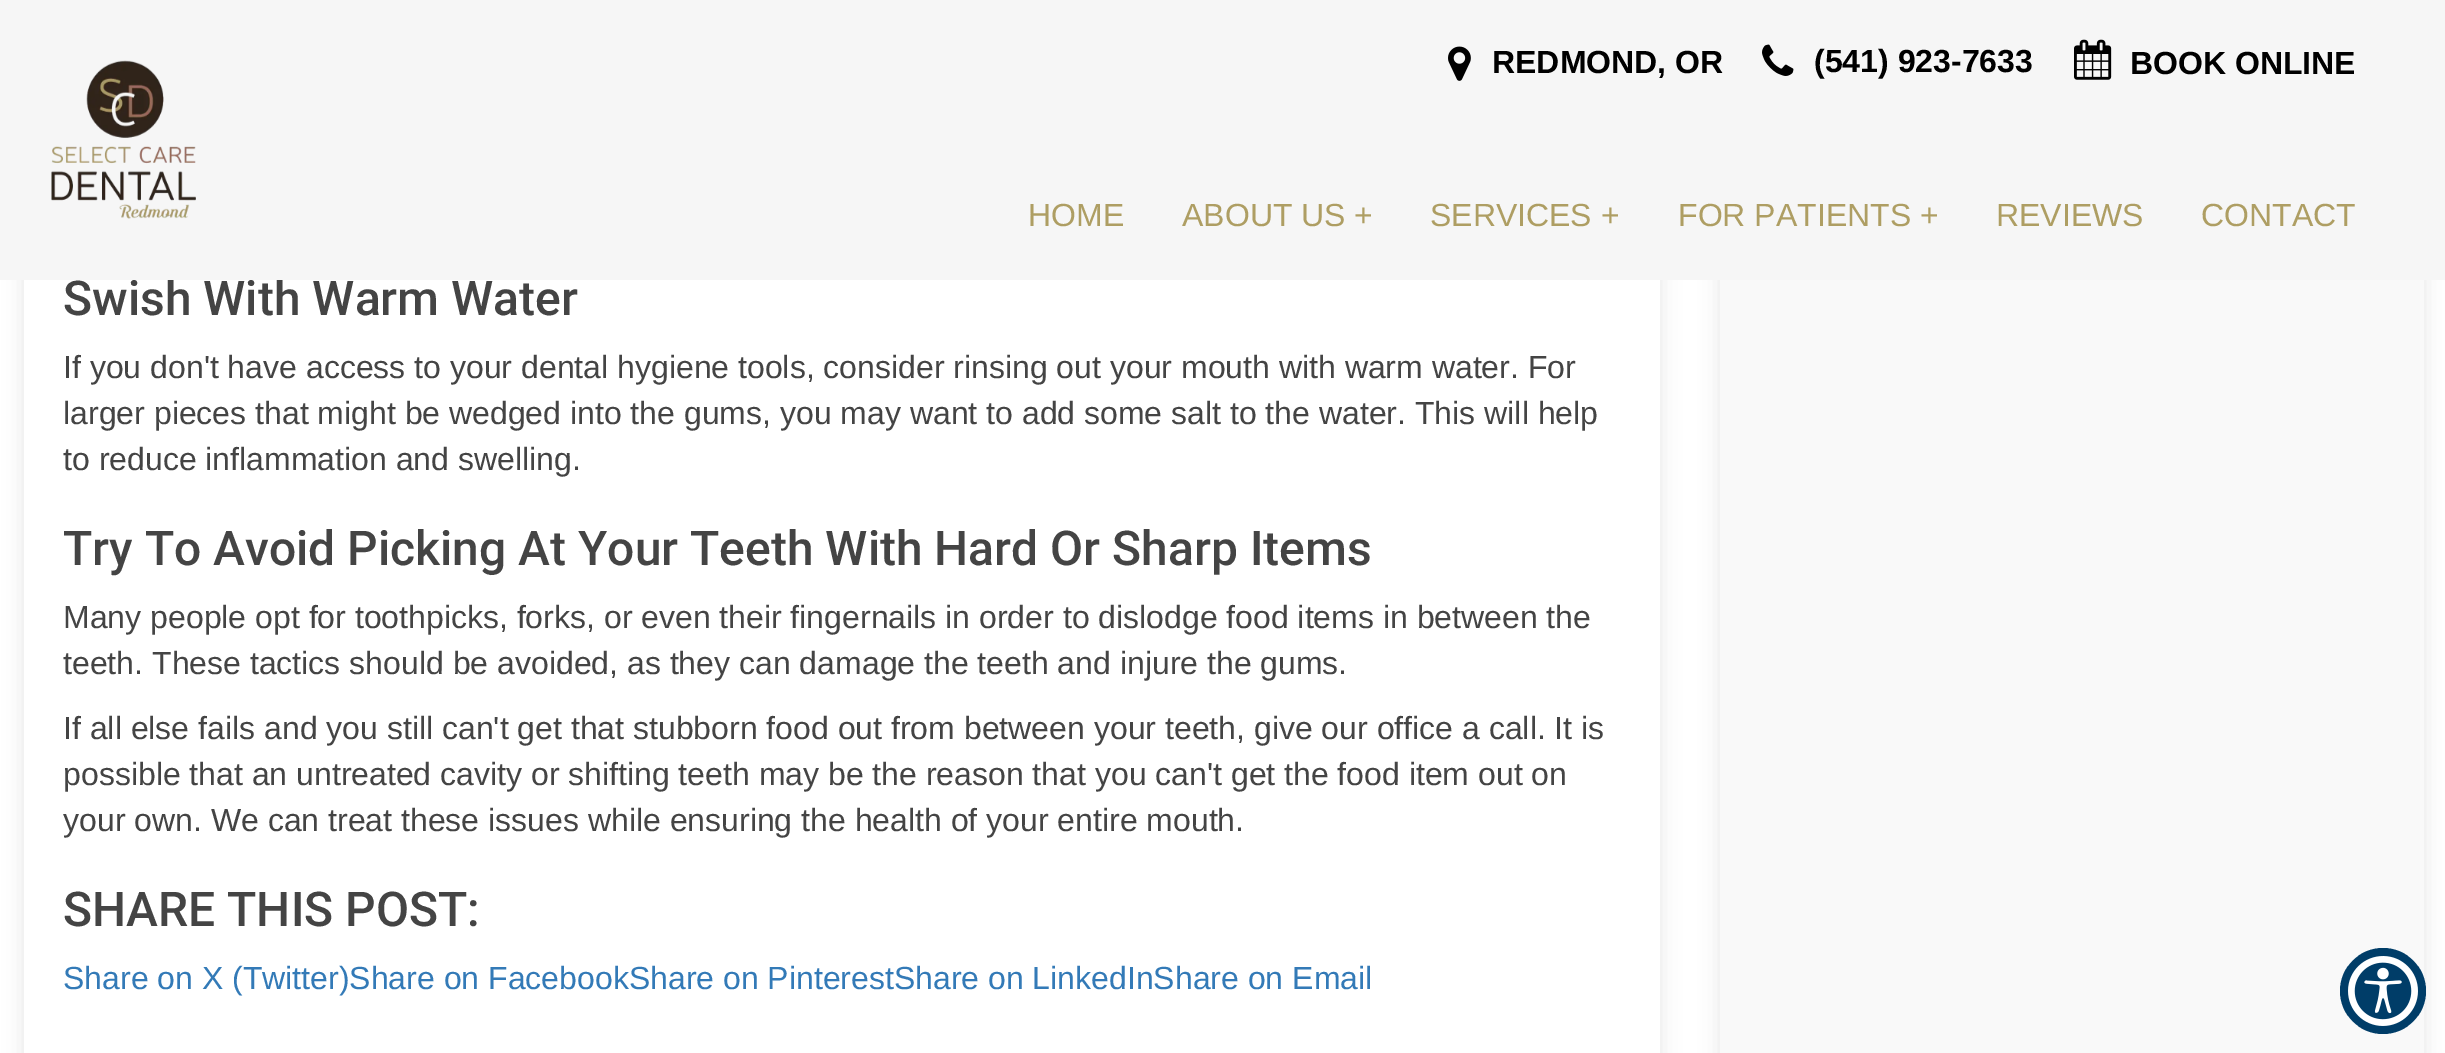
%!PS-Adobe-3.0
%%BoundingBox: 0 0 2445 1053
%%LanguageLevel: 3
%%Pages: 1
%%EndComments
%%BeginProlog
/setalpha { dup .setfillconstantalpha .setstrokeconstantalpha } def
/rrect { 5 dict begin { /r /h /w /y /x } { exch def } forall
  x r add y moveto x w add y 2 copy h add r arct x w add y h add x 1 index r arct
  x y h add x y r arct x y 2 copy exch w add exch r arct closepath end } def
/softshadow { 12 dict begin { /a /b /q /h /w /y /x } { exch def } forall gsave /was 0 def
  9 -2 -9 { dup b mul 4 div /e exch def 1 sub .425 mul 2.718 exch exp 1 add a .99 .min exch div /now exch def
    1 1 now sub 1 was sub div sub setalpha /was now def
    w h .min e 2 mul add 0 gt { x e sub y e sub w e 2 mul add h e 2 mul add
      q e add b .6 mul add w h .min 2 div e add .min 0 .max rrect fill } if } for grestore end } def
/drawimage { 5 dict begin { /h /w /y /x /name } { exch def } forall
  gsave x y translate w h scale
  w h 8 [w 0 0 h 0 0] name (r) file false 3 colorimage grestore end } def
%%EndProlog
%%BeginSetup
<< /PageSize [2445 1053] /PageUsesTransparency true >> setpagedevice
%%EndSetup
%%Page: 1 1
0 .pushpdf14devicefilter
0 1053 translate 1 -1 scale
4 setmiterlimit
1 setgray
0 0 2445 1053 rectfill
gsave
newpath 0 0 moveto 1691 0 lineto 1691 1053 lineto 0 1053 lineto closepath 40 -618 moveto 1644 -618 lineto 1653 -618 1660 -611 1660 -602 curveto 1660 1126 lineto 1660 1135 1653 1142 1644 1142 curveto 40 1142 lineto 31 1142 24 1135 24 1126 curveto 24 -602 lineto 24 -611 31 -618 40 -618 curveto closepath eoclip newpath
0 setgray
24 -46 1636 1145 16 10 0.1 softshadow
grestore
0 setgray
1720 -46 704 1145 16 10 0.1 softshadow
0.976 setgray
1720 280 704 773 rectfill
0 0.239 0.408 setrgbcolor
newpath 2383 991 43 0 360 arc closepath fill
(images/5.raw) 2348 956 70 70 drawimage
/Roboto-Medium [48 0 0 -48 0 0] selectfont
0.267 setgray
63 315 moveto (Swish With Warm Water) show
0.965 setgray
0 0 2445 280 rectfill
/LiberationSans-Regular [32 0 0 -32 0 0] selectfont
0.682 0.62 0.388 setrgbcolor
2201 226 moveto (CONTACT) show
1996 226 moveto (REVIEWS) show
1678 226 moveto (FOR PATIENTS +) show
1430 226 moveto (SERVICES +) show
1182 226 moveto (ABOUT US +) show
1028 226 moveto (HOME) show
/LiberationSans-Bold [32 0 0 -32 0 0] selectfont
0 setgray
2130 74 moveto (BOOK ONLINE) show
(images/4.raw) 2074 39 38 41 drawimage
1814 72 moveto (\(541\) 923-7633) show
(images/3.raw) 1762 44 32 32 drawimage
1492 73 moveto (REDMOND, OR) show
(images/2.raw) 1448 46 23 35 drawimage
(images/1.raw) 51 60 145 159 drawimage
/LiberationSans-Regular [32 0 0 -32 0 0] selectfont
0.267 setgray
63 378 moveto (If you don't have access to your dental hygiene tools, consider rinsing out your mouth with warm water. For) show
63 424 moveto (larger pieces that might be wedged into the gums, you may want to add some salt to the water. This will help) show
63 470 moveto (to reduce inflammation and swelling.) show
/Roboto-Medium [48 0 0 -48 0 0] selectfont
63 565 moveto (Try To Avoid Picking At Your Teeth With Hard Or Sharp Items) show
/LiberationSans-Regular [32 0 0 -32 0 0] selectfont
63 628 moveto (Many people opt for toothpicks, forks, or even their fingernails in order to dislodge food items in between the) show
63 674 moveto (teeth. These tactics should be avoided, as they can damage the teeth and injure the gums.) show
63 739 moveto (If all else fails and you still can't get that stubborn food out from between your teeth, give our office a call. It is) show
63 785 moveto (possible that an untreated cavity or shifting teeth may be the reason that you can't get the food item out on) show
63 831 moveto (your own. We can treat these issues while ensuring the health of your entire mouth.) show
/Roboto-Medium [48 0 0 -48 0 0] selectfont
63 926 moveto (SHARE THIS POST:) show
/LiberationSans-Regular [32 0 0 -32 0 0] selectfont
0.2 0.478 0.718 setrgbcolor
63 989 moveto (Share on X \(Twitter\)Share on FacebookShare on PinterestShare on LinkedInShare on Email) show
.poppdf14devicefilter showpage
%%EOF
